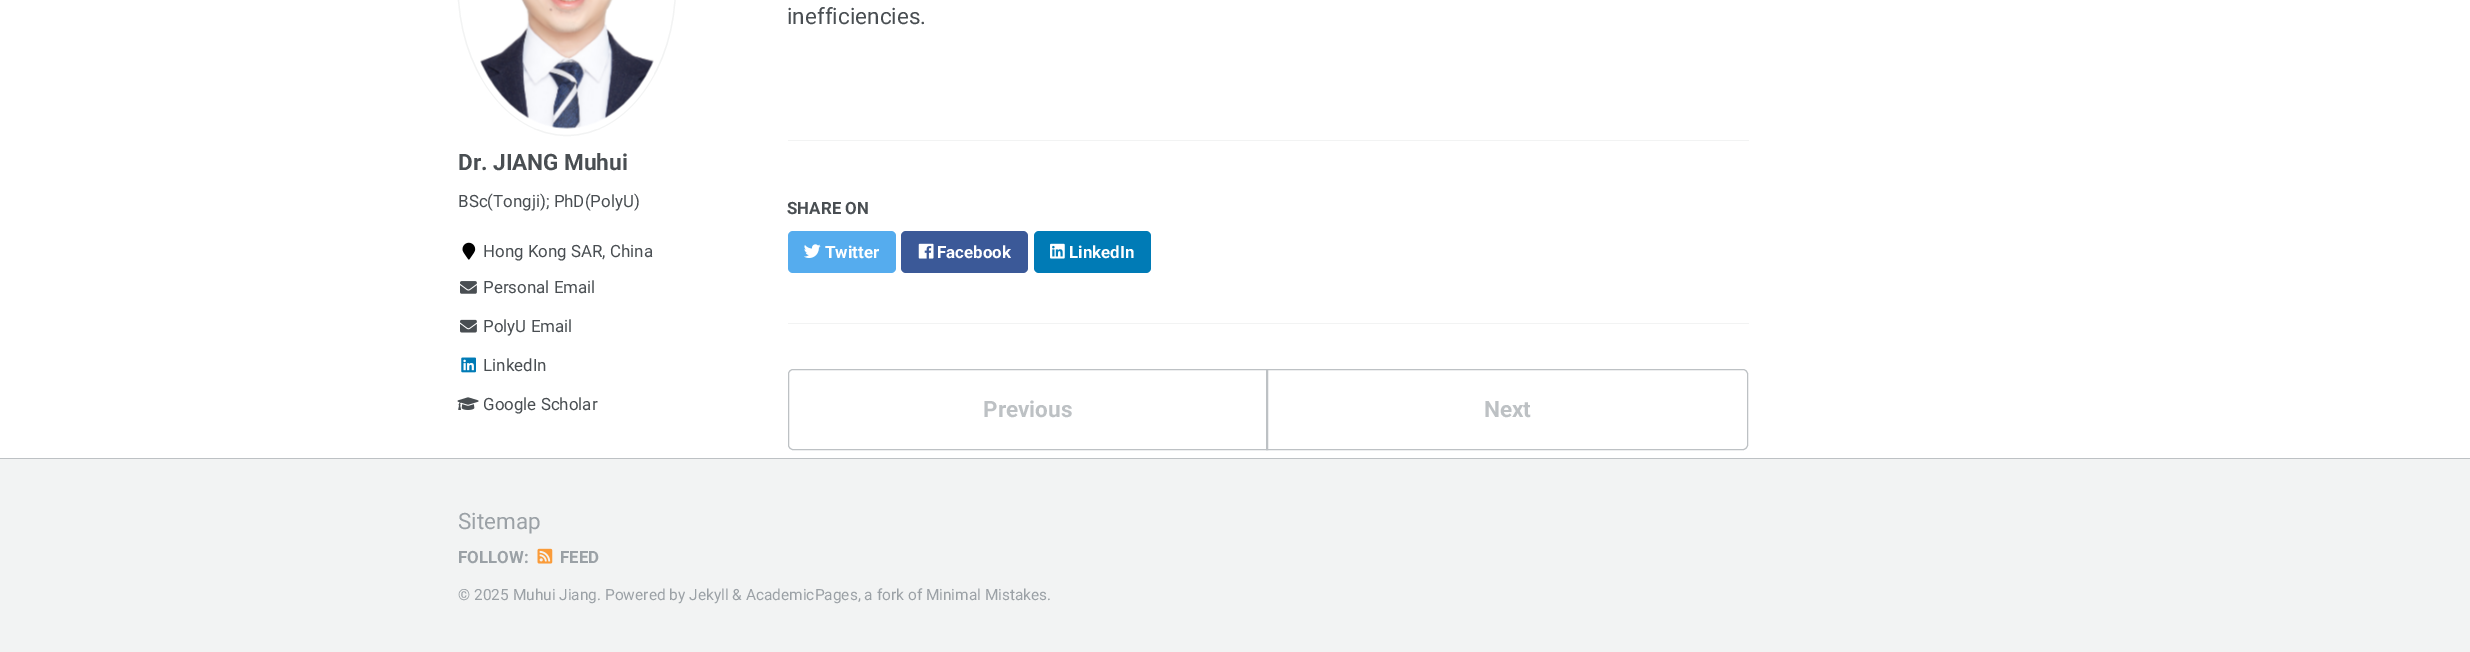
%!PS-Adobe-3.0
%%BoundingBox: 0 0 2470 652
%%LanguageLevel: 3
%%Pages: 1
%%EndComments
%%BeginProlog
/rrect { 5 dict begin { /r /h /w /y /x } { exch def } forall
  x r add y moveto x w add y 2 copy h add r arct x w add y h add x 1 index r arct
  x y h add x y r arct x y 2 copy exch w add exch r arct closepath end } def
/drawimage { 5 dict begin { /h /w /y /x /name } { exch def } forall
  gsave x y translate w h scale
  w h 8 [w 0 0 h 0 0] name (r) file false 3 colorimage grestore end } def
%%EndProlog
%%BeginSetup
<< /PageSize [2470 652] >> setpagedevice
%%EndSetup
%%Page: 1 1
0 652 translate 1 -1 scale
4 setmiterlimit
1 setgray
0 0 2470 652 rectfill
0.949 0.953 0.953 setrgbcolor
1.2 setlinewidth
newpath 567 -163 moveto 627 -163 675.5 -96 675.5 -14 curveto 675.5 68.5 627 135.5 567 135.5 curveto 507 135.5 458 68.5 458 -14 curveto 458 -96 507 -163 567 -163 curveto closepath stroke
(images/1.raw) 480 0 174 129 drawimage
(images/2.raw) 462 242 14 18 drawimage
(images/3.raw) 460 281 17 13 drawimage
(images/4.raw) 460 319 17 14 drawimage
(images/5.raw) 461 357 15 16 drawimage
(images/6.raw) 457 397 22 13 drawimage
788 140 961 1 rectfill
0.333 0.675 0.933 setrgbcolor
788 231 108 42 5 rrect fill
(images/7.raw) 804 244 17 14 drawimage
0.231 0.349 0.596 setrgbcolor
901 231 127 42 5 rrect fill
(images/8.raw) 918 243 16 16 drawimage
0 0.482 0.714 setrgbcolor
1034 231 117 42 5 rrect fill
(images/9.raw) 1050 243 15 16 drawimage
0.949 0.953 0.953 setrgbcolor
788 323 961 1 rectfill
0.741 0.757 0.769 setrgbcolor
1 setlinewidth
newpath 793 369.5 moveto 1267.5 369.5 lineto 1267.5 449.5 lineto 793 449.5 lineto 790.5 449.5 788.5 447.5 788.5 445 curveto 788.5 374 lineto 788.5 371.5 790.5 369.5 793 369.5 curveto closepath stroke
newpath 1266.5 369.5 moveto 1743 369.5 lineto 1745.5 369.5 1747.5 371.5 1747.5 374 curveto 1747.5 445 lineto 1747.5 447.5 1745.5 449.5 1743 449.5 curveto 1266.5 449.5 lineto closepath stroke
0.949 0.953 0.953 setrgbcolor
0 459 2470 193 rectfill
0.741 0.757 0.769 setrgbcolor
0 458 2470 1 rectfill
(images/10.raw) 537 548 16 16 drawimage
/Roboto-Bold [22.5 0 0 -22.5 0 0] selectfont
0.286 0.306 0.322 setrgbcolor
458 170 moveto (Dr. JIANG Muhui) show
/Roboto-Regular [16.9 0 0 -16.9 0 0] selectfont
458 207 moveto (BSc\(Tongji\); PhD\(PolyU\)) show
483 257 moveto (Hong Kong SAR, China) show
483 293 moveto (Personal Email) show
483 332 moveto (PolyU Email) show
483 371 moveto (LinkedIn) show
483 410 moveto (Google Scholar) show
/Roboto-Regular [22.5 0 0 -22.5 0 0] selectfont
787 24 moveto (inefficiencies.) show
/Roboto-Bold [16.9 0 0 -16.9 0 0] selectfont
787 214 moveto (SHARE ON) show
1 setgray
825 258 moveto (Twitter) show
937 258 moveto (Facebook) show
1069 258 moveto (LinkedIn) show
/Roboto-Bold [22.5 0 0 -22.5 0 0] selectfont
0.741 0.757 0.769 setrgbcolor
983 417 moveto (Previous) show
1484 417 moveto (Next) show
/Roboto-Regular [22.5 0 0 -22.5 0 0] selectfont
0.608 0.631 0.651 setrgbcolor
458 529 moveto (Sitemap) show
/Roboto-Bold [16.9 0 0 -16.9 0 0] selectfont
458 563 moveto (FOLLOW:) show
560 563 moveto (FEED) show
/Roboto-Regular [15.45 0 0 -15.45 0 0] selectfont
458 600 moveto (© 2025 Muhui Jiang. Powered by Jekyll & AcademicPages, a fork of Minimal Mistakes.) show
showpage
%%EOF
